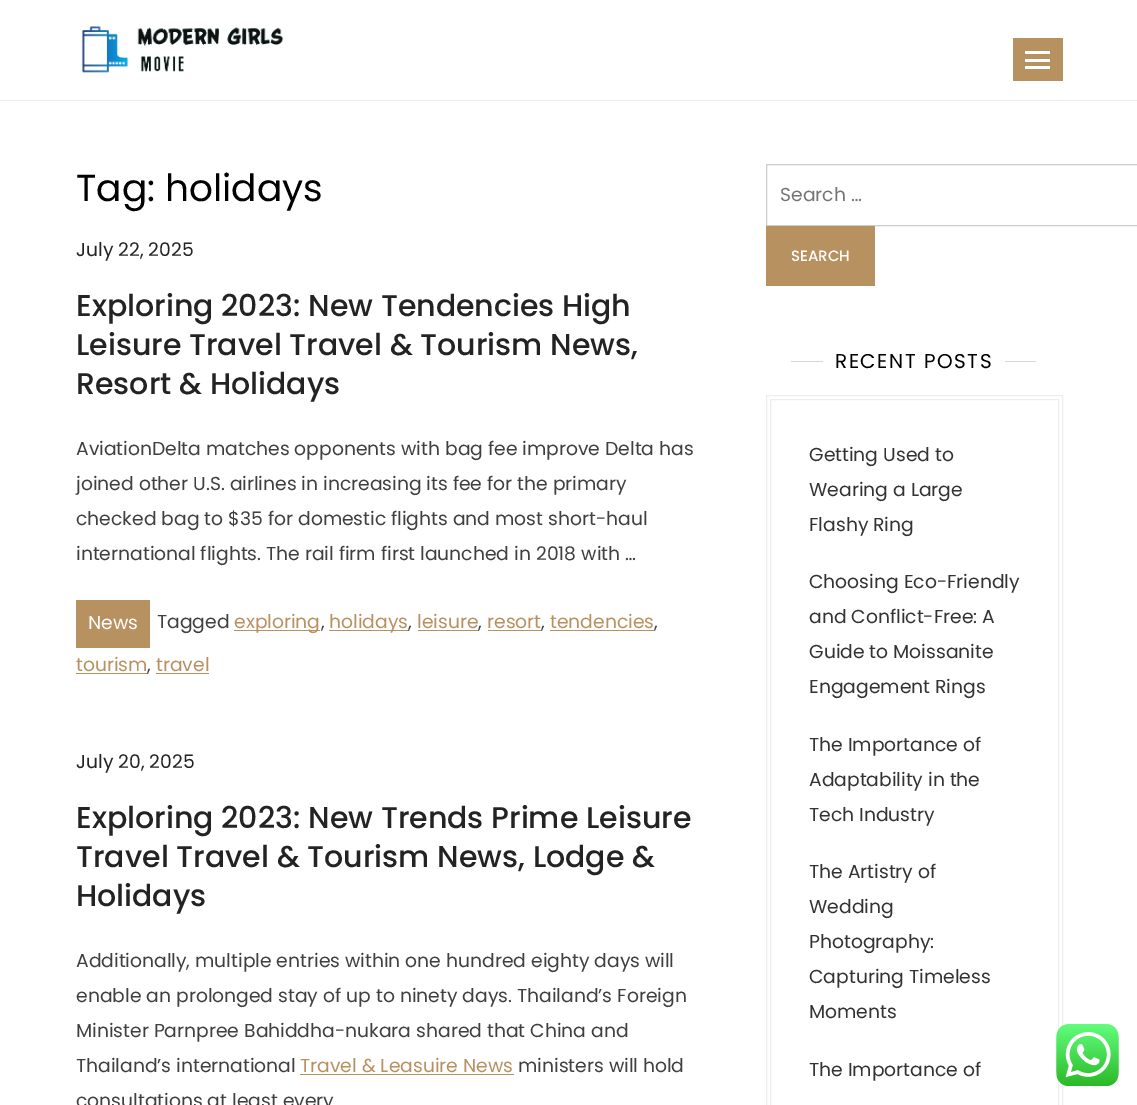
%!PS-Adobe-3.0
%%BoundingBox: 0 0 1137 1105
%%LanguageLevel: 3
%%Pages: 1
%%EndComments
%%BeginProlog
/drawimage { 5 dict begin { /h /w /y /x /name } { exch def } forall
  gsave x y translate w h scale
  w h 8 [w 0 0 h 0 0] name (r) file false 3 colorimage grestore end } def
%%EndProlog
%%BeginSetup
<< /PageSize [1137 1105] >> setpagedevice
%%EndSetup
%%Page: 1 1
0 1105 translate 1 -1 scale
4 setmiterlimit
1 setgray
0 0 1137 1105 rectfill
0.925 setgray
0 100 1137 1 rectfill
(images/1.raw) 81 26 203 47 drawimage
0.722 0.569 0.38 setrgbcolor
1013 38 50 43 rectfill
1 setgray
1025 51 25 3 rectfill
1025 59 25 3 rectfill
1025 66 25 3 rectfill
0.722 0.569 0.38 setrgbcolor
76 600 74 48 rectfill
234 630 86 1 rectfill
329 630 80 1 rectfill
418 630 61 1 rectfill
488 630 53 1 rectfill
550 630 104 1 rectfill
76 673 72 1 rectfill
156 673 53 1 rectfill
300 1074 214 1 rectfill
0.8 setgray
766.5 164.5 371 61 rectstroke
0.722 0.569 0.38 setrgbcolor
766 226 109 60 rectfill
0.839 setgray
791 361 32 1 rectfill
1005 361 31 1 rectfill
0.933 setgray
766.5 395.5 296 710 rectstroke
770.5 399.5 288 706 rectstroke
(images/2.raw) 1056 1024 63 62 drawimage
/Poppins-Regular [37.5 0 0 -37.5 0 0] selectfont
0 setgray
76 201 moveto (Tag: holidays) show
/Poppins-Regular [18.75 0 0 -18.75 0 0] selectfont
0.137 setgray
76 256 moveto (July 22, 2025) show
/Poppins-Medium [30 0 0 -30 0 0] selectfont
76 316 moveto (Exploring 2023: New Tendencies High) show
76 355 moveto (Leisure Travel Travel & Tourism News,) show
76 394 moveto (Resort & Holidays) show
/Poppins-Regular [18.75 0 0 -18.75 0 0] selectfont
0.251 setgray
76 455 moveto (AviationDelta matches opponents with bag fee improve Delta has) show
76 490 moveto (joined other U.S. airlines in increasing its fee for the primary) show
76 525 moveto (checked bag to $35 for domestic flights and most short-haul) show
76 560 moveto (international flights. The rail firm first launched in 2018 with …) show
1 setgray
88 629 moveto (News) show
0.251 setgray
157 628 moveto (Tagged) show
0.722 0.569 0.38 setrgbcolor
234 628 moveto (exploring) show
0.251 setgray
321 628 moveto (,) show
0.722 0.569 0.38 setrgbcolor
329 628 moveto (holidays) show
0.251 setgray
408 628 moveto (,) show
0.722 0.569 0.38 setrgbcolor
417 628 moveto (leisure) show
0.251 setgray
478 628 moveto (,) show
0.722 0.569 0.38 setrgbcolor
487 628 moveto (resort) show
0.251 setgray
541 628 moveto (,) show
0.722 0.569 0.38 setrgbcolor
550 628 moveto (tendencies) show
0.251 setgray
654 628 moveto (,) show
0.722 0.569 0.38 setrgbcolor
76 671 moveto (tourism) show
0.251 setgray
147 671 moveto (,) show
0.722 0.569 0.38 setrgbcolor
156 671 moveto (travel) show
0.137 setgray
76 768 moveto (July 20, 2025) show
/Poppins-Medium [30 0 0 -30 0 0] selectfont
76 828 moveto (Exploring 2023: New Trends Prime Leisure) show
76 867 moveto (Travel Travel & Tourism News, Lodge &) show
76 906 moveto (Holidays) show
/Poppins-Regular [18.75 0 0 -18.75 0 0] selectfont
0.251 setgray
76 967 moveto (Additionally, multiple entries within one hundred eighty days will) show
76 1002 moveto (enable an prolonged stay of up to ninety days. Thailand’s Foreign) show
76 1037 moveto (Minister Parnpree Bahiddha-nukara shared that China and) show
76 1072 moveto (Thailand’s international) show
0.722 0.569 0.38 setrgbcolor
300 1072 moveto (Travel & Leasuire News) show
0.251 setgray
518 1072 moveto (ministers will hold) show
76 1107 moveto (consultations at least every) show
0.459 setgray
780 201 moveto (Search …) show
/Poppins-Medium [15 0 0 -15 0 0] selectfont
1 setgray
791 261 moveto (SEARCH) show
/Poppins-Regular [20 0 0 -20 0 0] selectfont
0 setgray
835 368 moveto 1.5 0 (RECENT POSTS) ashow
/Poppins-Regular [18.75 0 0 -18.75 0 0] selectfont
0.2 setgray
809 461 moveto (Getting Used to) show
809 496 moveto (Wearing a Large) show
809 531 moveto (Flashy Ring) show
809 588 moveto (Choosing Eco-Friendly) show
809 623 moveto (and Conflict-Free: A) show
809 658 moveto (Guide to Moissanite) show
809 693 moveto (Engagement Rings) show
809 751 moveto (The Importance of) show
809 786 moveto (Adaptability in the) show
809 821 moveto (Tech Industry) show
809 878 moveto (The Artistry of) show
809 913 moveto (Wedding) show
809 948 moveto (Photography:) show
809 983 moveto (Capturing Timeless) show
809 1018 moveto (Moments) show
809 1076 moveto (The Importance of) show
showpage
%%EOF
